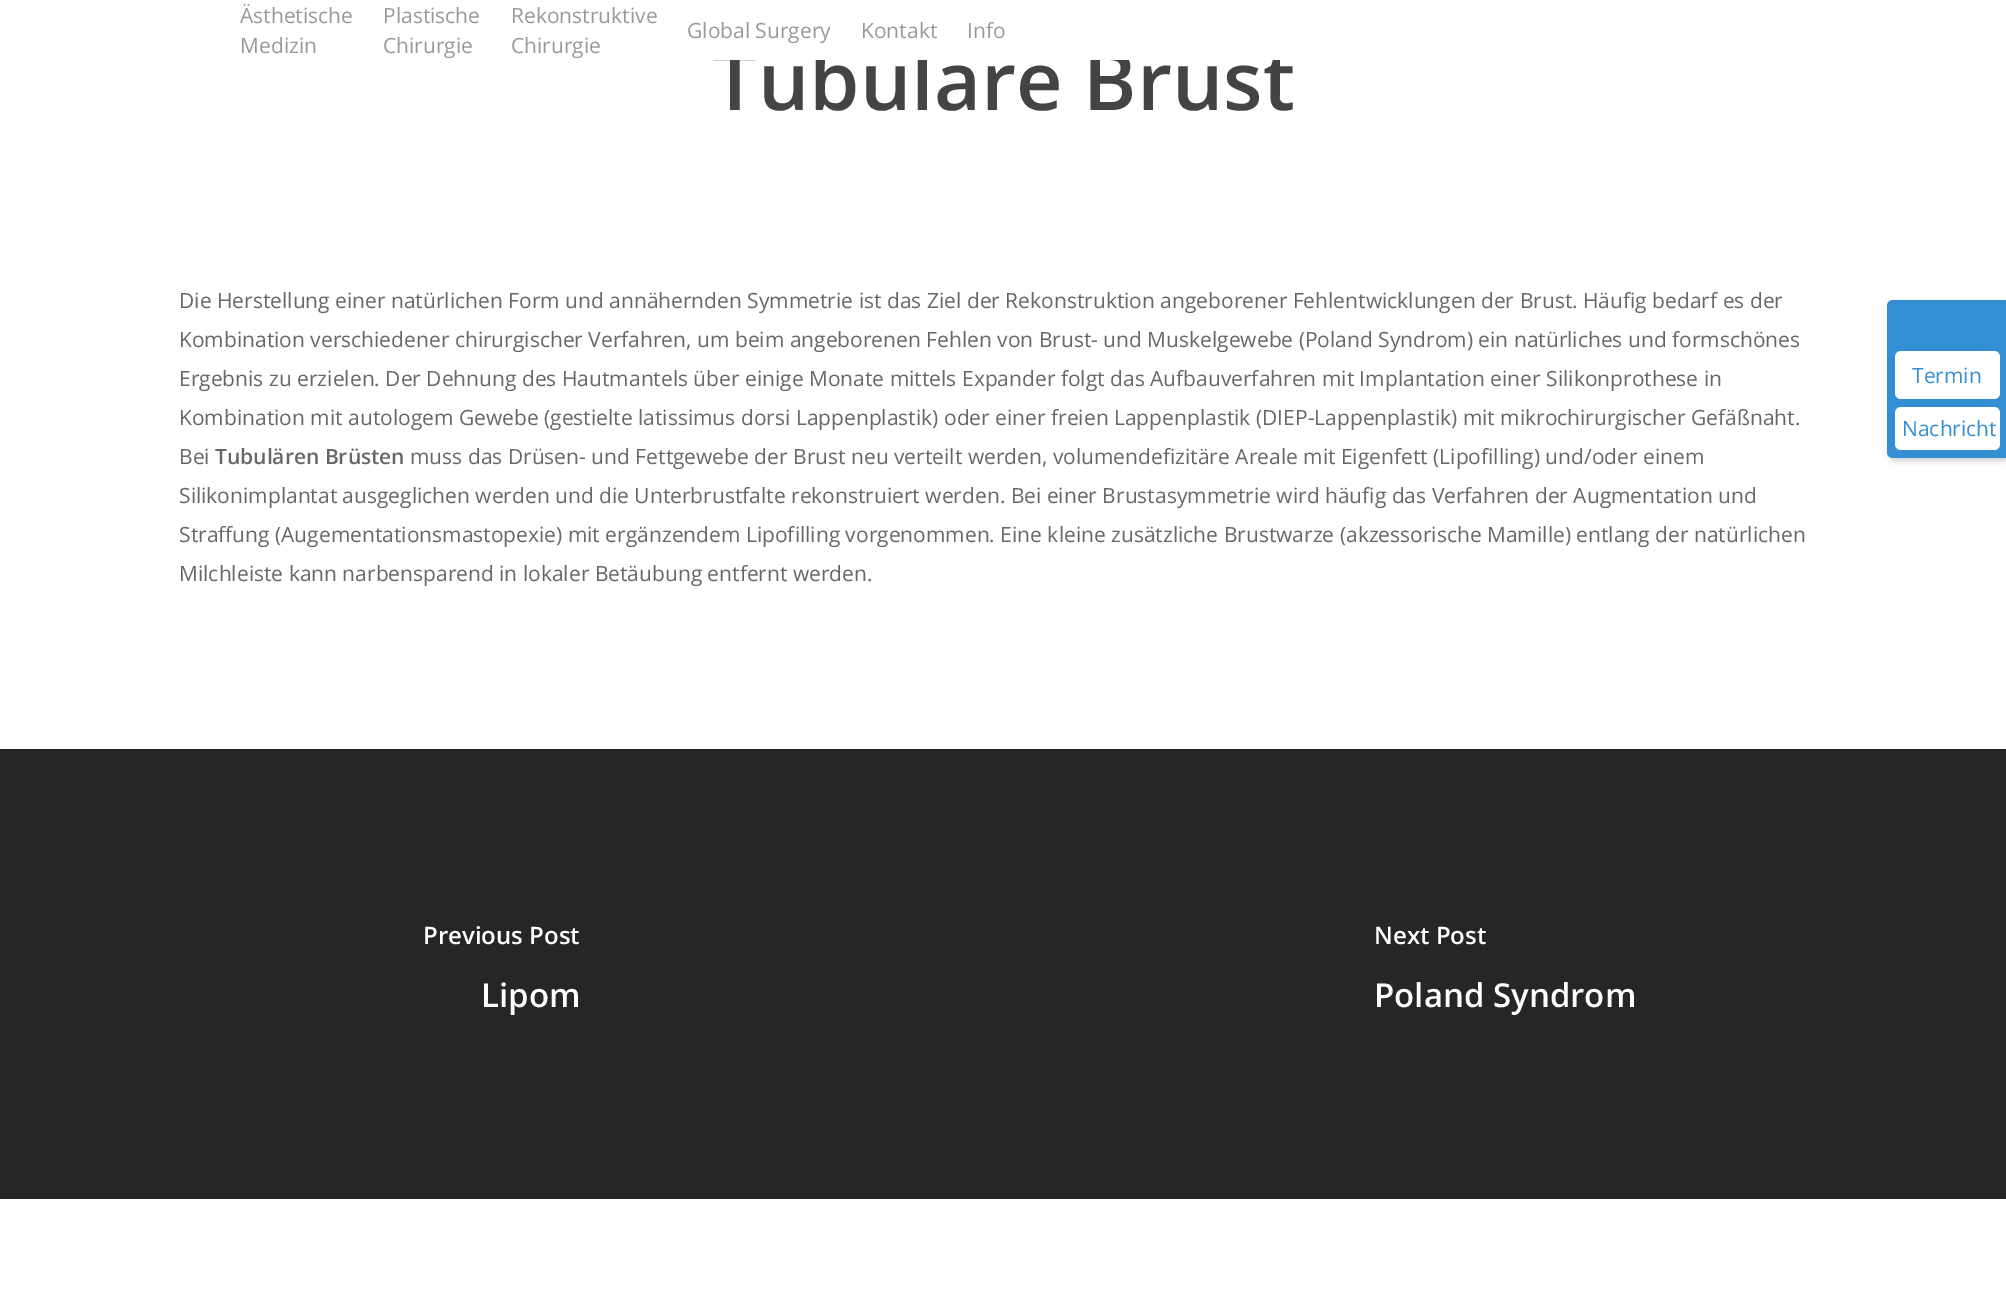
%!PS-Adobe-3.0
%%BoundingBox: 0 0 2006 1299
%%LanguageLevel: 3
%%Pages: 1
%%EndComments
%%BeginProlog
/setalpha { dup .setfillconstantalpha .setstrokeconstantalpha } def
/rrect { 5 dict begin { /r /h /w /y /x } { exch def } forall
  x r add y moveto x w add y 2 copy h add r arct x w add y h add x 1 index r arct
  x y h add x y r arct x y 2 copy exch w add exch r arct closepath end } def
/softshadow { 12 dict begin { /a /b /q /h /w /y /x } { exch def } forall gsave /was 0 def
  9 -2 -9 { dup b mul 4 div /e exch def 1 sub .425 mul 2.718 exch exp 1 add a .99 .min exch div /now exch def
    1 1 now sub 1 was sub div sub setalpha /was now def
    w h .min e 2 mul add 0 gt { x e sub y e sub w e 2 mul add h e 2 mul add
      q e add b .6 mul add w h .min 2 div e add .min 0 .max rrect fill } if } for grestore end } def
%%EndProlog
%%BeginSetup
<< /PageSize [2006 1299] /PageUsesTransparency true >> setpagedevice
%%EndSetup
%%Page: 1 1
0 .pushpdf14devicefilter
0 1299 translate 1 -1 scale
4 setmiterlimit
1 setgray
0 0 2006 1299 rectfill
0.149 setgray
0 749 2006 450 rectfill
1889 303 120 158 6 3 0.2 softshadow
0.204 0.557 0.824 setrgbcolor
newpath 1893 300 moveto 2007 300 lineto 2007 458 lineto 1893 458 lineto 1889.5 458 1887 455.5 1887 452 curveto 1887 306 lineto 1887 302.5 1889.5 300 1893 300 curveto closepath fill
1 setgray
1895 351 105 48 6 rrect fill
1895 407 105 43 6 rrect fill
/OpenSans-Regular [21 0 0 -21 0 0] selectfont
0.6 setgray
240 23 moveto (Ästhetische) show
240 53 moveto (Medizin) show
383 23 moveto (Plastische) show
383 53 moveto (Chirurgie) show
511 23 moveto (Rekonstruktive) show
511 53 moveto (Chirurgie) show
687 38 moveto (Global Surgery) show
861 38 moveto (Kontakt) show
967 38 moveto (Info) show
/OpenSans-SemiBold [81 0 0 -81 0 0] selectfont
0.267 setgray
712 110 moveto (Tubuläre Brust) show
1 setgray
713 48 567 12 rectfill
/OpenSans-Regular [21 0 0 -21 0 0] selectfont
0.404 setgray
179 308 moveto (Die Herstellung einer natürlichen Form und annähernden Symmetrie ist das Ziel der Rekonstruktion angeborener Fehlentwicklungen der Brust. Häufig bedarf es der) show
179 347 moveto (Kombination verschiedener chirurgischer Verfahren, um beim angeborenen Fehlen von Brust- und Muskelgewebe \(Poland Syndrom\) ein natürliches und formschönes) show
179 386 moveto (Ergebnis zu erzielen. Der Dehnung des Hautmantels über einige Monate mittels Expander folgt das Aufbauverfahren mit Implantation einer Silikonprothese in) show
179 425 moveto (Kombination mit autologem Gewebe \(gestielte latissimus dorsi Lappenplastik\) oder einer freien Lappenplastik \(DIEP-Lappenplastik\) mit mikrochirurgischer Gefäßnaht.) show
179 464 moveto (Bei) show
/OpenSans-SemiBold [21 0 0 -21 0 0] selectfont
215 464 moveto (Tubulären Brüsten) show
/OpenSans-Regular [21 0 0 -21 0 0] selectfont
410 464 moveto (muss das Drüsen- und Fettgewebe der Brust neu verteilt werden, volumendefizitäre Areale mit Eigenfett \(Lipofilling\) und/oder einem) show
179 503 moveto (Silikonimplantat ausgeglichen werden und die Unterbrustfalte rekonstruiert werden. Bei einer Brustasymmetrie wird häufig das Verfahren der Augmentation und) show
179 542 moveto (Straffung \(Augementationsmastopexie\) mit ergänzendem Lipofilling vorgenommen. Eine kleine zusätzliche Brustwarze \(akzessorische Mamille\) entlang der natürlichen) show
179 581 moveto (Milchleiste kann narbensparend in lokaler Betäubung entfernt werden.) show
/OpenSans-SemiBold [24 0 0 -24 0 0] selectfont
1 setgray
423 944 moveto (Previous Post) show
/OpenSans-SemiBold [33 0 0 -33 0 0] selectfont
481 1007 moveto (Lipom) show
/OpenSans-SemiBold [24 0 0 -24 0 0] selectfont
1374 944 moveto (Next Post) show
/OpenSans-SemiBold [33 0 0 -33 0 0] selectfont
1374 1007 moveto (Poland Syndrom) show
/OpenSans-Regular [21 0 0 -21 0 0] selectfont
0.204 0.557 0.824 setrgbcolor
1912 383 moveto (Termin) show
1902 436 moveto (Nachricht) show
.poppdf14devicefilter showpage
%%EOF
